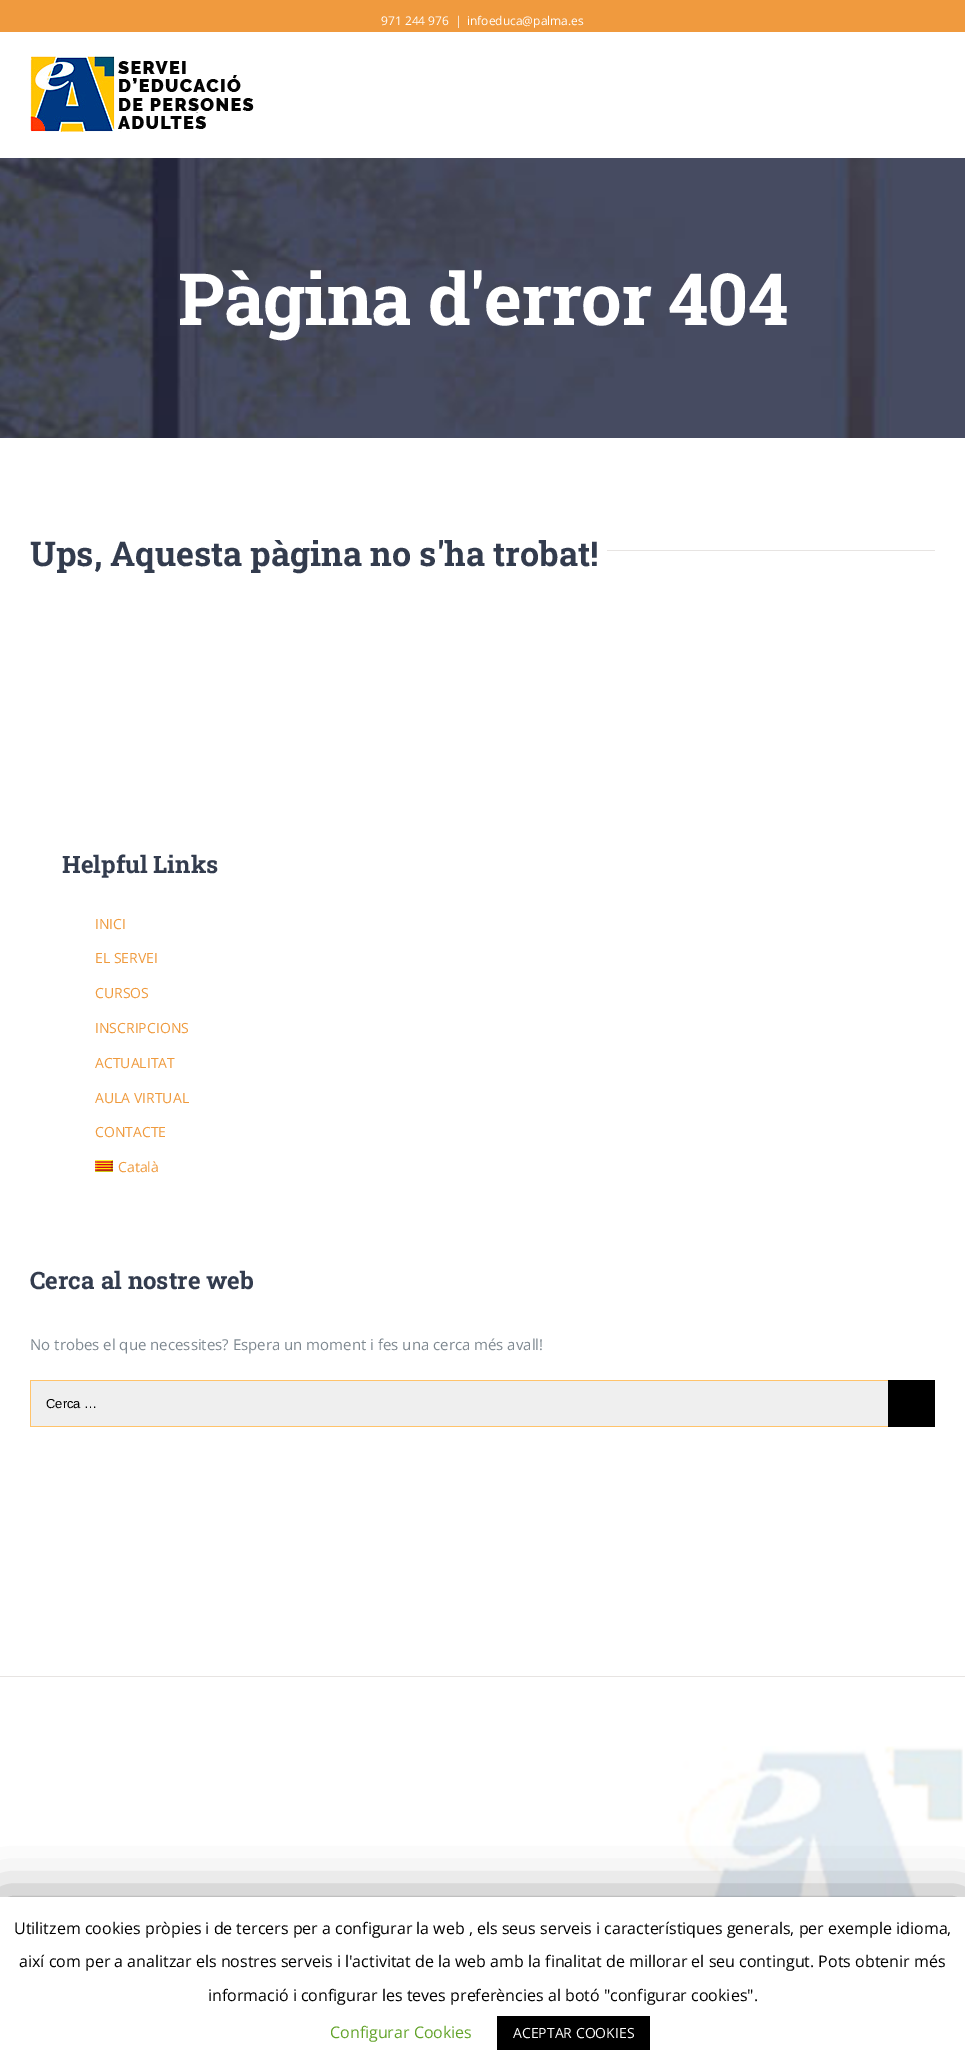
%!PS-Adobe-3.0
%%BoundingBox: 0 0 965 2068
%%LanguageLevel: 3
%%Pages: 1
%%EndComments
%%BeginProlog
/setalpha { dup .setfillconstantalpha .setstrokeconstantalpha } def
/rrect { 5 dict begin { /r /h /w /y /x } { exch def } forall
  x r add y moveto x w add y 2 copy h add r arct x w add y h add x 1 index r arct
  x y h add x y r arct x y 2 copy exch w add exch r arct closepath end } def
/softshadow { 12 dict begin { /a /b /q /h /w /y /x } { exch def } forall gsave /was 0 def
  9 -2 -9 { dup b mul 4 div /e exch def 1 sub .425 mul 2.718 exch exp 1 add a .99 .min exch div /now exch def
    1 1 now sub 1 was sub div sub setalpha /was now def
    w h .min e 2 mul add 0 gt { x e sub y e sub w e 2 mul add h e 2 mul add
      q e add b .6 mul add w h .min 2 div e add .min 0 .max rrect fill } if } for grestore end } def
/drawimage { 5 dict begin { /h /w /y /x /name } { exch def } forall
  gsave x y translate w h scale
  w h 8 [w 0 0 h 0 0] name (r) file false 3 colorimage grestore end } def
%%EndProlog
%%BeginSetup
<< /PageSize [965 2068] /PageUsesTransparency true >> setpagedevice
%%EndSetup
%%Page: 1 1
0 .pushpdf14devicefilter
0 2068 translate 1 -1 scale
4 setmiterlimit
1 setgray
0 0 965 2068 rectfill
0.941 0.604 0.243 setrgbcolor
0 0 965 32 rectfill
(images/1.raw) 30 56 224 76 drawimage
(images/2.raw) 0 158 965 280 drawimage
0.906 0.894 0.886 setrgbcolor
607 550 328 1 rectfill
(images/3.raw) 95 1160 18 12 drawimage
0.937 setgray
31 1381 857 45 rectfill
1 0.765 0.42 setrgbcolor
30 1380 858 1 rectfill
30 1426 858 1 rectfill
30 1380 1 47 rectfill
0 setgray
888 1380 47 47 rectfill
(images/4.raw) 668 1746 295 151 drawimage
0.906 0.894 0.886 setrgbcolor
0 1676 965 1 rectfill
0 setgray
0 1902 965 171 0 25 0.5 softshadow
1 setgray
0 1897 965 171 rectfill
0 setgray
497 2016 153 34 rectfill
/OpenSans-Regular [12 0 0 -12 0 0] selectfont
1 setgray
381 25 moveto (971 244 976) show
455 25 moveto (|) show
467 25 moveto (infoeduca@palma.es) show
/RobotoSlab-Bold [72 0 0 -72 0 0] selectfont
178 325 moveto -1 0 (Pàgina d'error 404) ashow
/RobotoSlab-Bold [34 0 0 -34 0 0] selectfont
0.2 0.235 0.306 setrgbcolor
30 566 moveto (Ups, Aquesta pàgina no s'ha trobat!) show
/RobotoSlab-Bold [24 0 0 -24 0 0] selectfont
62 873 moveto (Helpful Links) show
/OpenSans-Regular [14 0 0 -14 0 0] selectfont
0.937 0.604 0.239 setrgbcolor
95 929 moveto (INICI) show
95 963 moveto (EL SERVEI) show
95 998 moveto (CURSOS) show
95 1033 moveto (INSCRIPCIONS) show
95 1068 moveto (ACTUALITAT) show
95 1103 moveto (AULA VIRTUAL) show
95 1137 moveto (CONTACTE) show
118 1172 moveto (Català) show
/RobotoSlab-Bold [24 0 0 -24 0 0] selectfont
0.2 0.235 0.306 setrgbcolor
30 1289 moveto (Cerca al nostre web) show
/OpenSans-Regular [15 0 0 -15 0 0] selectfont
0.494 0.533 0.565 setrgbcolor
30 1350 moveto (No trobes el que necessites? Espera un moment i fes una cerca més avall!) show
/LiberationSans-Regular [13 0 0 -13 0 0] selectfont
0 setgray
46 1408 moveto (Cerca …) show
/OpenSans-Regular [16 0 0 -16 0 0] selectfont
14 1934 moveto (Utilitzem cookies pròpies i de tercers per a configurar la web , els seus serveis i característiques generals, per exemple idioma,) show
19 1967 moveto (així com per a analitzar els nostres serveis i l'activitat de la web amb la finalitat de millorar el seu contingut. Pots obtenir més) show
208 2001 moveto (informació i configurar les teves preferències al botó "configurar cookies".) show
0.384 0.639 0.161 setrgbcolor
330 2038 moveto (Configurar Cookies) show
/OpenSans-Regular [14 0 0 -14 0 0] selectfont
1 setgray
513 2038 moveto (ACEPTAR COOKIES) show
.poppdf14devicefilter showpage
%%EOF
